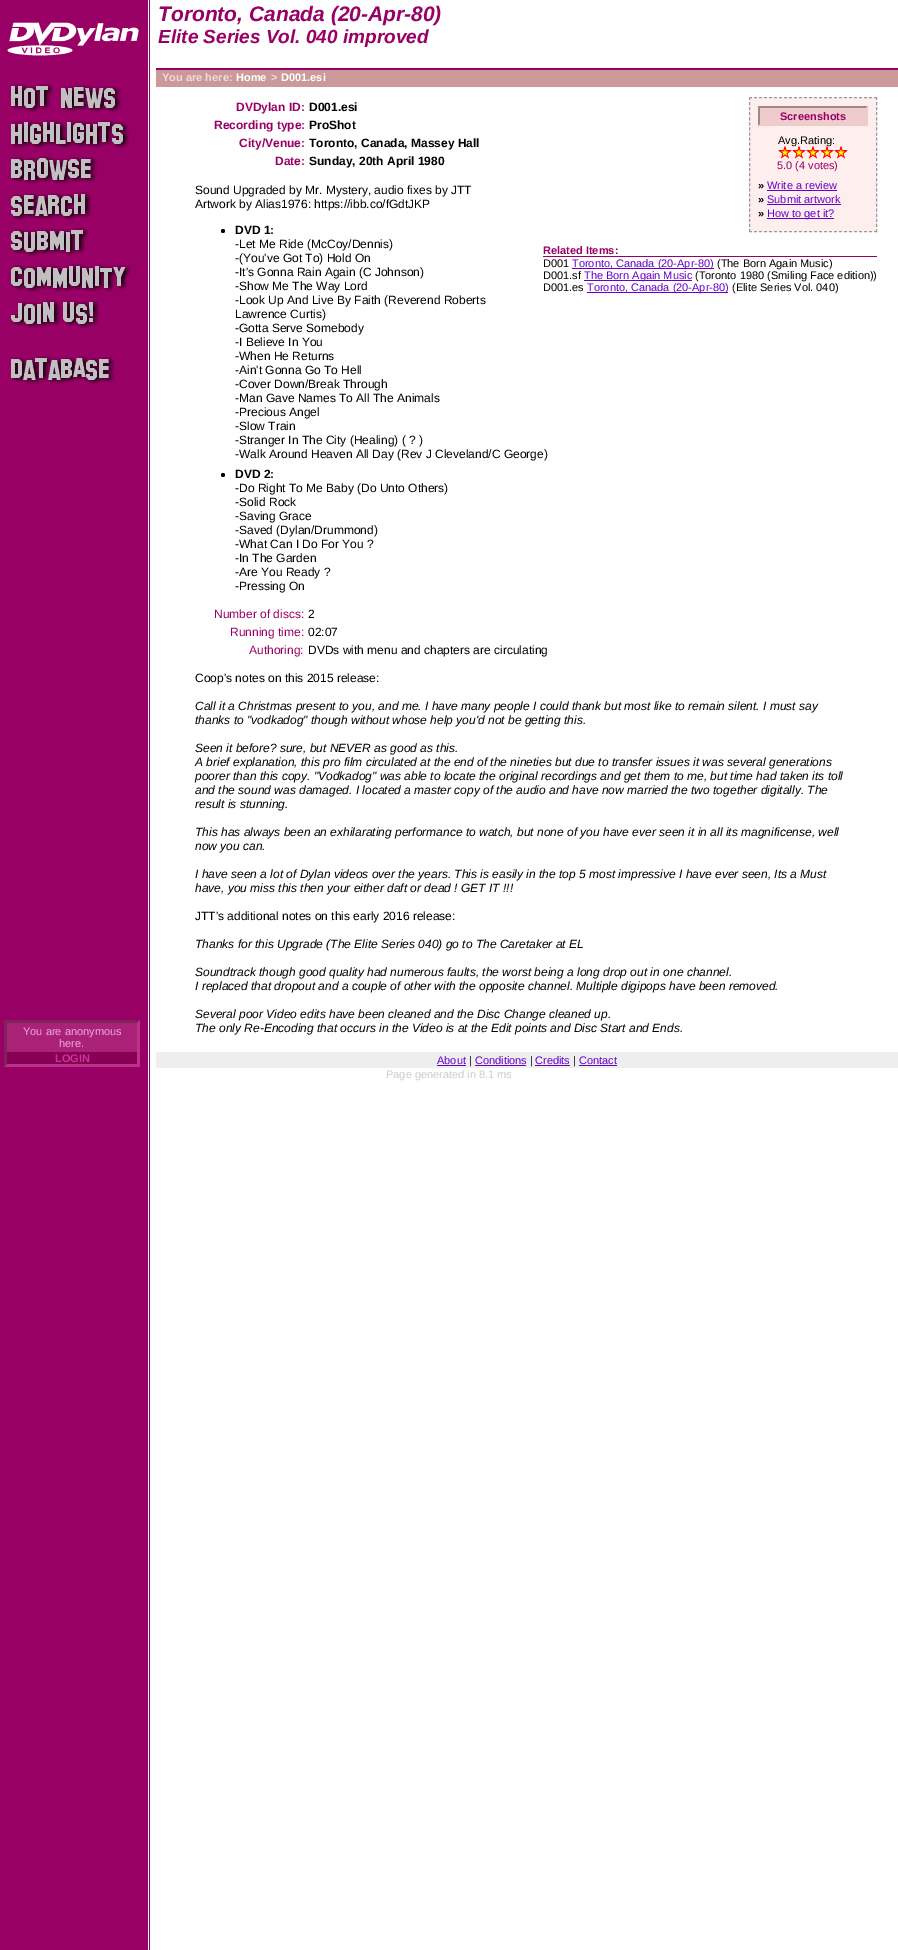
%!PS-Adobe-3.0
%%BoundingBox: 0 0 898 1950
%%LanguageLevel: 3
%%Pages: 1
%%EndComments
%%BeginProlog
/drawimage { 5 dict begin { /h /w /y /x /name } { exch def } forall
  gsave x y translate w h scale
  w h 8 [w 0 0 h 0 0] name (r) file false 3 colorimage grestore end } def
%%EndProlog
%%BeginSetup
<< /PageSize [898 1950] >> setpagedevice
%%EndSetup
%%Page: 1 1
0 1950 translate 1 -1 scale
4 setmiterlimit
1 setgray
0 0 898 1950 rectfill
(images/1.raw) 0 0 150 1950 drawimage
(images/2.raw) 7 22 132 34 drawimage
0.6 0 0.4 setrgbcolor
156 68 742 2 rectfill
0.8 0.6 0.6 setrgbcolor
156 70 742 17 rectfill
(images/3.raw) 11 84 110 28 drawimage
(images/4.raw) 11 120 118 28 drawimage
(images/5.raw) 11 156 86 28 drawimage
(images/6.raw) 11 192 80 28 drawimage
(images/7.raw) 11 228 78 28 drawimage
(images/8.raw) 11 264 120 28 drawimage
(images/9.raw) 11 300 88 28 drawimage
(images/10.raw) 11 356 104 28 drawimage
1 0.933 0.933 setrgbcolor
749 97 128 135 rectfill
0.6 setgray
[3 2] 0 setdash
newpath 749 97.5 moveto 877 97.5 lineto stroke
[3 2.08] 0 setdash
newpath 876.5 97 moveto 876.5 232 lineto stroke
[3 2] 0 setdash
newpath 749 231.5 moveto 877 231.5 lineto stroke
[3 2.08] 0 setdash
newpath 749.5 97 moveto 749.5 232 lineto stroke
0.933 0.8 0.8 setrgbcolor
758 106 110 20 rectfill
0.624 0.533 0.533 setrgbcolor
newpath 758 106 moveto 868 106 lineto 866 108 lineto 760 108 lineto closepath fill
0.933 0.8 0.8 setrgbcolor
newpath 868 106 moveto 868 126 lineto 866 124 lineto 866 108 lineto closepath fill
0.624 0.533 0.533 setrgbcolor
newpath 758 126 moveto 758 106 lineto 760 108 lineto 760 124 lineto closepath fill
(images/11.raw) 834 146 14 13 drawimage
0.4 0 0.8 setrgbcolor
767 190 70 1 rectfill
767 204 74 1 rectfill
767 218 67 1 rectfill
0 setgray
newpath 223 231 2 0 360 arc closepath fill
newpath 223 475 2 0 360 arc closepath fill
0.6 0 0.4 setrgbcolor
543 256 334 1 rectfill
0.4 0 0.8 setrgbcolor
572 268 142 1 rectfill
584 280 108 1 rectfill
587 292 141 1 rectfill
0.667 0.133 0.467 setrgbcolor
4 1020 136 47 rectfill
0.49 0.133 0.357 setrgbcolor
newpath 4 1020 moveto 140 1020 lineto 137 1023 lineto 7 1023 lineto closepath fill
0.733 0.2 0.533 setrgbcolor
newpath 140 1020 moveto 140 1067 lineto 137 1064 lineto 137 1023 lineto closepath fill
newpath 140 1067 moveto 4 1067 lineto 7 1064 lineto 137 1064 lineto closepath fill
0.49 0.133 0.357 setrgbcolor
newpath 4 1067 moveto 4 1020 lineto 7 1023 lineto 7 1064 lineto closepath fill
0.533 0 0.333 setrgbcolor
7 1052 130 12 rectfill
0.933 setgray
156 1052 742 16 rectfill
0.4 0 0.8 setrgbcolor
437 1065 29 1 rectfill
475 1065 51 1 rectfill
535 1065 35 1 rectfill
579 1065 38 1 rectfill
/LiberationSans-BoldItalic [21 0 0 -21 0 0] selectfont
0.6 0 0.4 setrgbcolor
158 21 moveto (Toronto, Canada \(20-Apr-80\)) show
/LiberationSans-BoldItalic [19 0 0 -19 0 0] selectfont
158 43 moveto (Elite Series Vol. 040 improved) show
/LiberationSans-Bold [11 0 0 -11 0 0] selectfont
0.933 0.867 0.867 setrgbcolor
162 81 moveto (You are here:) show
1 setgray
236 81 moveto (Home) show
0.933 0.867 0.867 setrgbcolor
271 81 moveto (>) show
1 setgray
281 81 moveto (D001.esi) show
/LiberationSans-Bold [12 0 0 -12 0 0] selectfont
0.6 0 0.4 setrgbcolor
236 111 moveto (DVDylan ID:) show
0 setgray
309 111 moveto (D001.esi) show
0.6 0 0.4 setrgbcolor
214 129 moveto (Recording type:) show
0 setgray
309 129 moveto (ProShot) show
0.6 0 0.4 setrgbcolor
239 147 moveto (City/Venue:) show
0 setgray
309 147 moveto (Toronto, Canada, Massey Hall) show
0.6 0 0.4 setrgbcolor
275 165 moveto (Date:) show
0 setgray
309 165 moveto (Sunday, 20th April 1980) show
/LiberationSans-Bold [11 0 0 -11 0 0] selectfont
0.6 0 0.4 setrgbcolor
780 120 moveto (Screenshots) show
/LiberationSans-Regular [11 0 0 -11 0 0] selectfont
0 setgray
778 144 moveto (Avg.Rating:) show
(images/11.raw) 778 146 14 13 drawimage
(images/12.raw) 792 146 14 13 drawimage
(images/11.raw) 806 146 14 13 drawimage
(images/13.raw) 820 146 14 13 drawimage
0.6 0 0.4 setrgbcolor
777 169 moveto (5.0 \(4 votes\)) show
/LiberationSans-Bold [11 0 0 -11 0 0] selectfont
0 setgray
758 189 moveto (») show
/LiberationSans-Regular [11 0 0 -11 0 0] selectfont
0.4 0 0.8 setrgbcolor
767 189 moveto (Write a review) show
/LiberationSans-Bold [11 0 0 -11 0 0] selectfont
0 setgray
758 203 moveto (») show
/LiberationSans-Regular [11 0 0 -11 0 0] selectfont
0.4 0 0.8 setrgbcolor
767 203 moveto (Submit artwork) show
/LiberationSans-Bold [11 0 0 -11 0 0] selectfont
0 setgray
758 217 moveto (») show
/LiberationSans-Regular [11 0 0 -11 0 0] selectfont
0.4 0 0.8 setrgbcolor
767 217 moveto (How to get it?) show
/LiberationSans-Regular [12 0 0 -12 0 0] selectfont
0 setgray
195 194 moveto (Sound Upgraded by Mr. Mystery, audio fixes by JTT) show
195 208 moveto (Artwork by Alias1976: https://ibb.co/fGdtJKP) show
/LiberationSans-Bold [12 0 0 -12 0 0] selectfont
235 234 moveto (DVD 1:) show
/LiberationSans-Regular [12 0 0 -12 0 0] selectfont
235 248 moveto (-Let Me Ride \(McCoy/Dennis\)) show
235 262 moveto (-\(You've Got To\) Hold On) show
235 276 moveto (-It's Gonna Rain Again \(C Johnson\)) show
235 290 moveto (-Show Me The Way Lord) show
235 304 moveto (-Look Up And Live By Faith \(Reverend Roberts) show
235 318 moveto (Lawrence Curtis\)) show
235 332 moveto (-Gotta Serve Somebody) show
235 346 moveto (-I Believe In You) show
235 360 moveto (-When He Returns) show
235 374 moveto (-Ain't Gonna Go To Hell) show
235 388 moveto (-Cover Down/Break Through) show
235 402 moveto (-Man Gave Names To All The Animals) show
235 416 moveto (-Precious Angel) show
235 430 moveto (-Slow Train) show
235 444 moveto (-Stranger In The City \(Healing\) \( ? \)) show
235 458 moveto (-Walk Around Heaven All Day \(Rev J Cleveland/C George\)) show
/LiberationSans-Bold [12 0 0 -12 0 0] selectfont
235 478 moveto (DVD 2:) show
/LiberationSans-Regular [12 0 0 -12 0 0] selectfont
235 492 moveto (-Do Right To Me Baby \(Do Unto Others\)) show
235 506 moveto (-Solid Rock) show
235 520 moveto (-Saving Grace) show
235 534 moveto (-Saved \(Dylan/Drummond\)) show
235 548 moveto (-What Can I Do For You ?) show
235 562 moveto (-In The Garden) show
235 576 moveto (-Are You Ready ?) show
235 590 moveto (-Pressing On) show
/LiberationSans-Bold [11 0 0 -11 0 0] selectfont
0.6 0 0.4 setrgbcolor
543 254 moveto (Related Items:) show
/LiberationSans-Regular [11 0 0 -11 0 0] selectfont
0 setgray
543 267 moveto (D001) show
0.4 0 0.8 setrgbcolor
572 267 moveto (Toronto, Canada \(20-Apr-80\)) show
0 setgray
717 267 moveto (\(The Born Again Music\)) show
543 279 moveto (D001.sf) show
0.4 0 0.8 setrgbcolor
584 279 moveto (The Born Again Music) show
0 setgray
695 279 moveto (\(Toronto 1980 \(Smiling Face edition\)\)) show
543 291 moveto (D001.es) show
0.4 0 0.8 setrgbcolor
587 291 moveto (Toronto, Canada \(20-Apr-80\)) show
0 setgray
732 291 moveto (\(Elite Series Vol. 040\)) show
/LiberationSans-Regular [12 0 0 -12 0 0] selectfont
0.6 0 0.4 setrgbcolor
214 618 moveto (Number of discs:) show
0 setgray
308 618 moveto (2) show
0.6 0 0.4 setrgbcolor
230 636 moveto (Running time:) show
0 setgray
308 636 moveto (02:07) show
0.6 0 0.4 setrgbcolor
249 654 moveto (Authoring:) show
0 setgray
308 654 moveto (DVDs with menu and chapters are circulating) show
195 682 moveto (Coop's notes on this 2015 release:) show
/LiberationSans-Italic [12 0 0 -12 0 0] selectfont
195 710 moveto (Call it a Christmas present to you, and me. I have many people I could thank but most like to remain silent. I must say) show
195 724 moveto (thanks to "vodkadog" though without whose help you'd not be getting this.) show
195 752 moveto (Seen it before? sure, but NEVER as good as this.) show
195 766 moveto (A brief explanation, this pro film circulated at the end of the nineties but due to transfer issues it was several generations) show
195 780 moveto (poorer than this copy. "Vodkadog" was able to locate the original recordings and get them to me, but time had taken its toll) show
195 794 moveto (and the sound was damaged. I located a master copy of the audio and have now married the two together digitally. The) show
195 808 moveto (result is stunning.) show
195 836 moveto (This has always been an exhilarating performance to watch, but none of you have ever seen it in all its magnificense, well) show
195 850 moveto (now you can.) show
195 878 moveto (I have seen a lot of Dylan videos over the years. This is easily in the top 5 most impressive I have ever seen, Its a Must) show
195 892 moveto (have, you miss this then your either daft or dead ! GET IT !!!) show
/LiberationSans-Regular [12 0 0 -12 0 0] selectfont
195 920 moveto (JTT's additional notes on this early 2016 release:) show
/LiberationSans-Italic [12 0 0 -12 0 0] selectfont
195 948 moveto (Thanks for this Upgrade \(The Elite Series 040\) go to The Caretaker at EL) show
195 976 moveto (Soundtrack though good quality had numerous faults, the worst being a long drop out in one channel.) show
195 990 moveto (I replaced that dropout and a couple of other with the opposite channel. Multiple digipops have been removed.) show
195 1018 moveto (Several poor Video edits have been cleaned and the Disc Change cleaned up.) show
195 1032 moveto (The only Re-Encoding that occurs in the Video is at the Edit points and Disc Start and Ends.) show
/LiberationSans-Regular [11 0 0 -11 0 0] selectfont
0.933 0.667 0.867 setrgbcolor
23 1035 moveto (You are anonymous) show
59 1047 moveto (here.) show
/LiberationSans-Bold [11 0 0 -11 0 0] selectfont
0.8 0.2 0.6 setrgbcolor
55 1062 moveto (LOGIN) show
/LiberationSans-Regular [11 0 0 -11 0 0] selectfont
0.4 0 0.8 setrgbcolor
437 1064 moveto (About) show
0 setgray
469 1064 moveto (|) show
0.4 0 0.8 setrgbcolor
475 1064 moveto (Conditions) show
0 setgray
530 1064 moveto (|) show
0.4 0 0.8 setrgbcolor
535 1064 moveto (Credits) show
0 setgray
573 1064 moveto (|) show
0.4 0 0.8 setrgbcolor
579 1064 moveto (Contact) show
0.8 setgray
386 1078 moveto (Page generated in 8.1 ms) show
showpage
%%EOF
